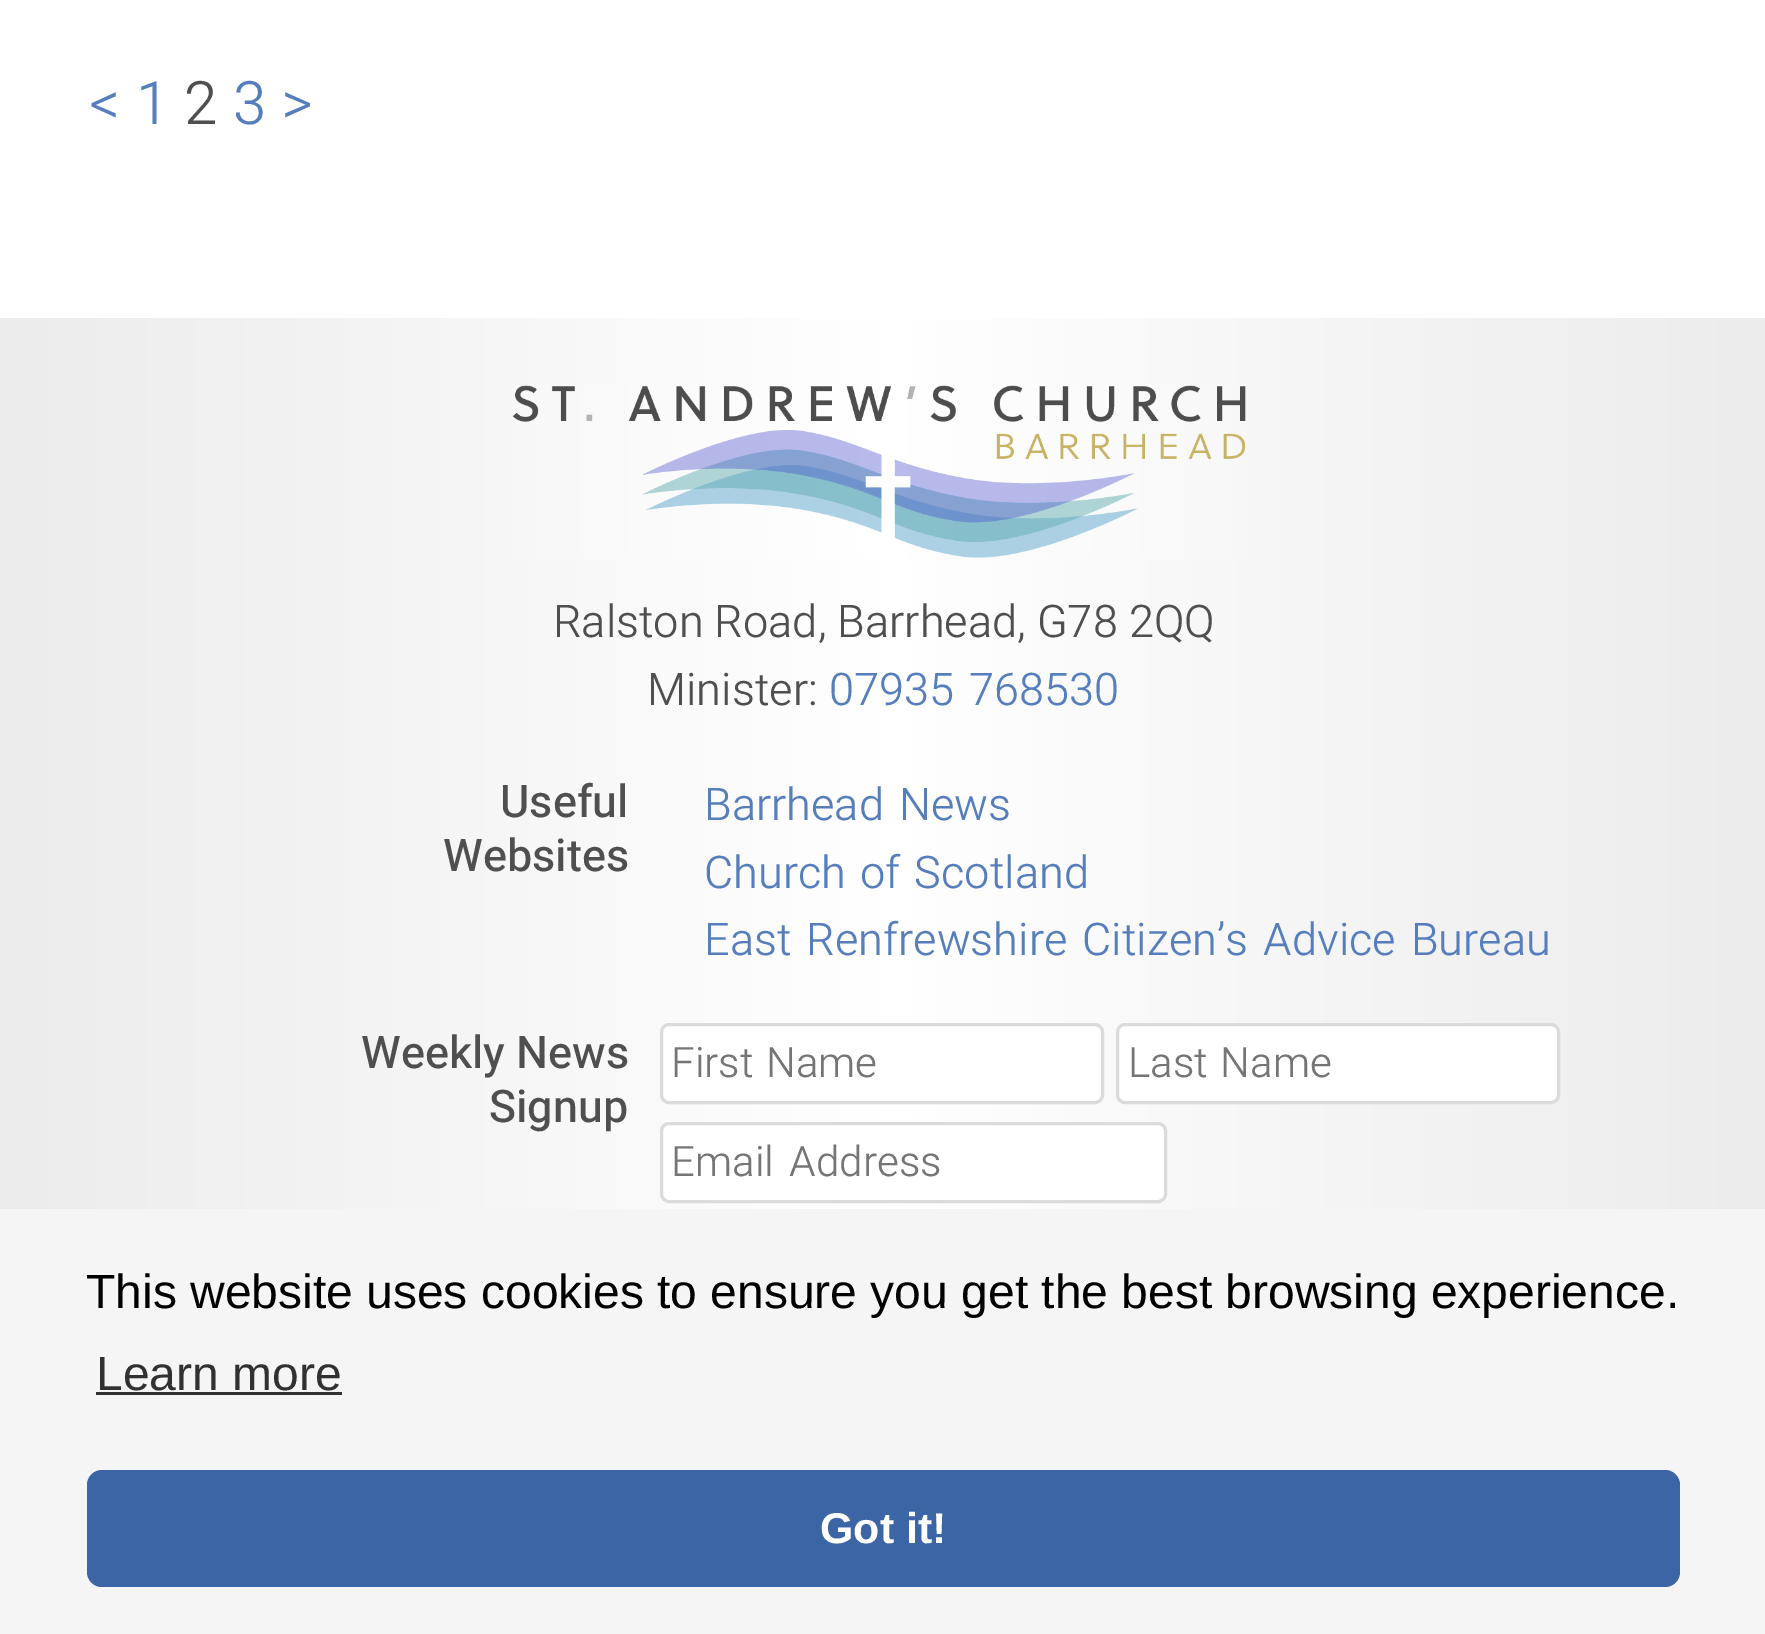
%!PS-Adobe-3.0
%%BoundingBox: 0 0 1765 1634
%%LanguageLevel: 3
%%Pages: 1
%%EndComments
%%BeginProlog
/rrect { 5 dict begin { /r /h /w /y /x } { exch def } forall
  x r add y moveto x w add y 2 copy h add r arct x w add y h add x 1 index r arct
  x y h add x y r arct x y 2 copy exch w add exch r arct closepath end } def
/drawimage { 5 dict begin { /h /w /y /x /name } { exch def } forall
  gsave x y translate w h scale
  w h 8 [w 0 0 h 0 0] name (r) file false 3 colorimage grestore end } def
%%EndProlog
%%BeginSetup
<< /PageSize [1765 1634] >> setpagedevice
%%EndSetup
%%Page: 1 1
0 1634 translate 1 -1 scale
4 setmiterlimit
1 setgray
0 0 1765 1634 rectfill
gsave newpath 0 318 moveto 1765 318 lineto 1765 1209 lineto 0 1209 lineto closepath clip newpath
<< /ShadingType 2 /ColorSpace /DeviceRGB /Coords [0 1052 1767 1052] /Extend [true true] /Function << /FunctionType 3 /Domain [0 1] /Functions [<< /FunctionType 2 /Domain [0 1] /C0 [0.925 0.925 0.925] /C1 [1 1 1] /N 1 >> << /FunctionType 2 /Domain [0 1] /C0 [1 1 1] /C1 [0.925 0.925 0.925] /N 1 >>] /Bounds [0.5] /Encode [0 1 0 1] >> >> shfill grestore
(images/1.raw) 512 385 734 173 drawimage
661.5 1024.5 441 78 7.5 rrect gsave fill grestore
0.859 setgray
3 setlinewidth
stroke
1 setgray
1117.5 1024.5 441 78 7.5 rrect gsave fill grestore
0.859 setgray
stroke
1 setgray
661.5 1123.5 504 78 7.5 rrect gsave fill grestore
0.859 setgray
stroke
0.961 setgray
0 1209 1765 425 rectfill
0.192 setgray
96 1392 246 3 rectfill
0.231 0.396 0.643 setrgbcolor
87 1470 1593 117 15 rrect fill
/Heebo-Light [60 0 0 -60 0 0] selectfont
0.341 0.494 0.737 setrgbcolor
88 124 moveto (<) show
136 124 moveto (1) show
0.31 setgray
184 124 moveto (2) show
0.341 0.494 0.737 setrgbcolor
233 124 moveto (3) show
282 124 moveto (>) show
/Heebo-Light [45 0 0 -45 0 0] selectfont
0.31 setgray
553 637 moveto (Ralston Road, Barrhead, G78 2QQ) show
647 705 moveto (Minister:) show
0.341 0.494 0.737 setrgbcolor
829 705 moveto 4 0 32 (07935 768530) widthshow
/Heebo-Medium [45 0 0 -45 0 0] selectfont
0.31 setgray
500 817 moveto (Useful) show
443 871 moveto (Websites) show
/Heebo-Light [45 0 0 -45 0 0] selectfont
0.341 0.494 0.737 setrgbcolor
704 820 moveto 4 0 32 (Barrhead News) widthshow
704 888 moveto 3 0 32 (Church of Scotland) widthshow
704 955 moveto 4 0 32 (East Renfrewshire Citizen’s Advice Bureau) widthshow
/Heebo-Medium [45 0 0 -45 0 0] selectfont
0.31 setgray
361 1068 moveto (Weekly News) show
489 1122 moveto (Signup) show
/Heebo-Light [42 0 0 -42 0 0] selectfont
0.459 setgray
671 1077 moveto 2 0 32 (First Name) widthshow
1128 1077 moveto 2 0 32 (Last Name) widthshow
671 1176 moveto 5 0 32 (Email Address) widthshow
/LiberationSans-Regular [48 0 0 -48 0 0] selectfont
0 setgray
86 1308 moveto (This website uses cookies to ensure you get the best browsing experience.) show
0.192 setgray
96 1390 moveto (Learn more) show
/LiberationSans-Bold [43 0 0 -43 0 0] selectfont
1 setgray
820 1543 moveto (Got it!) show
showpage
%%EOF
